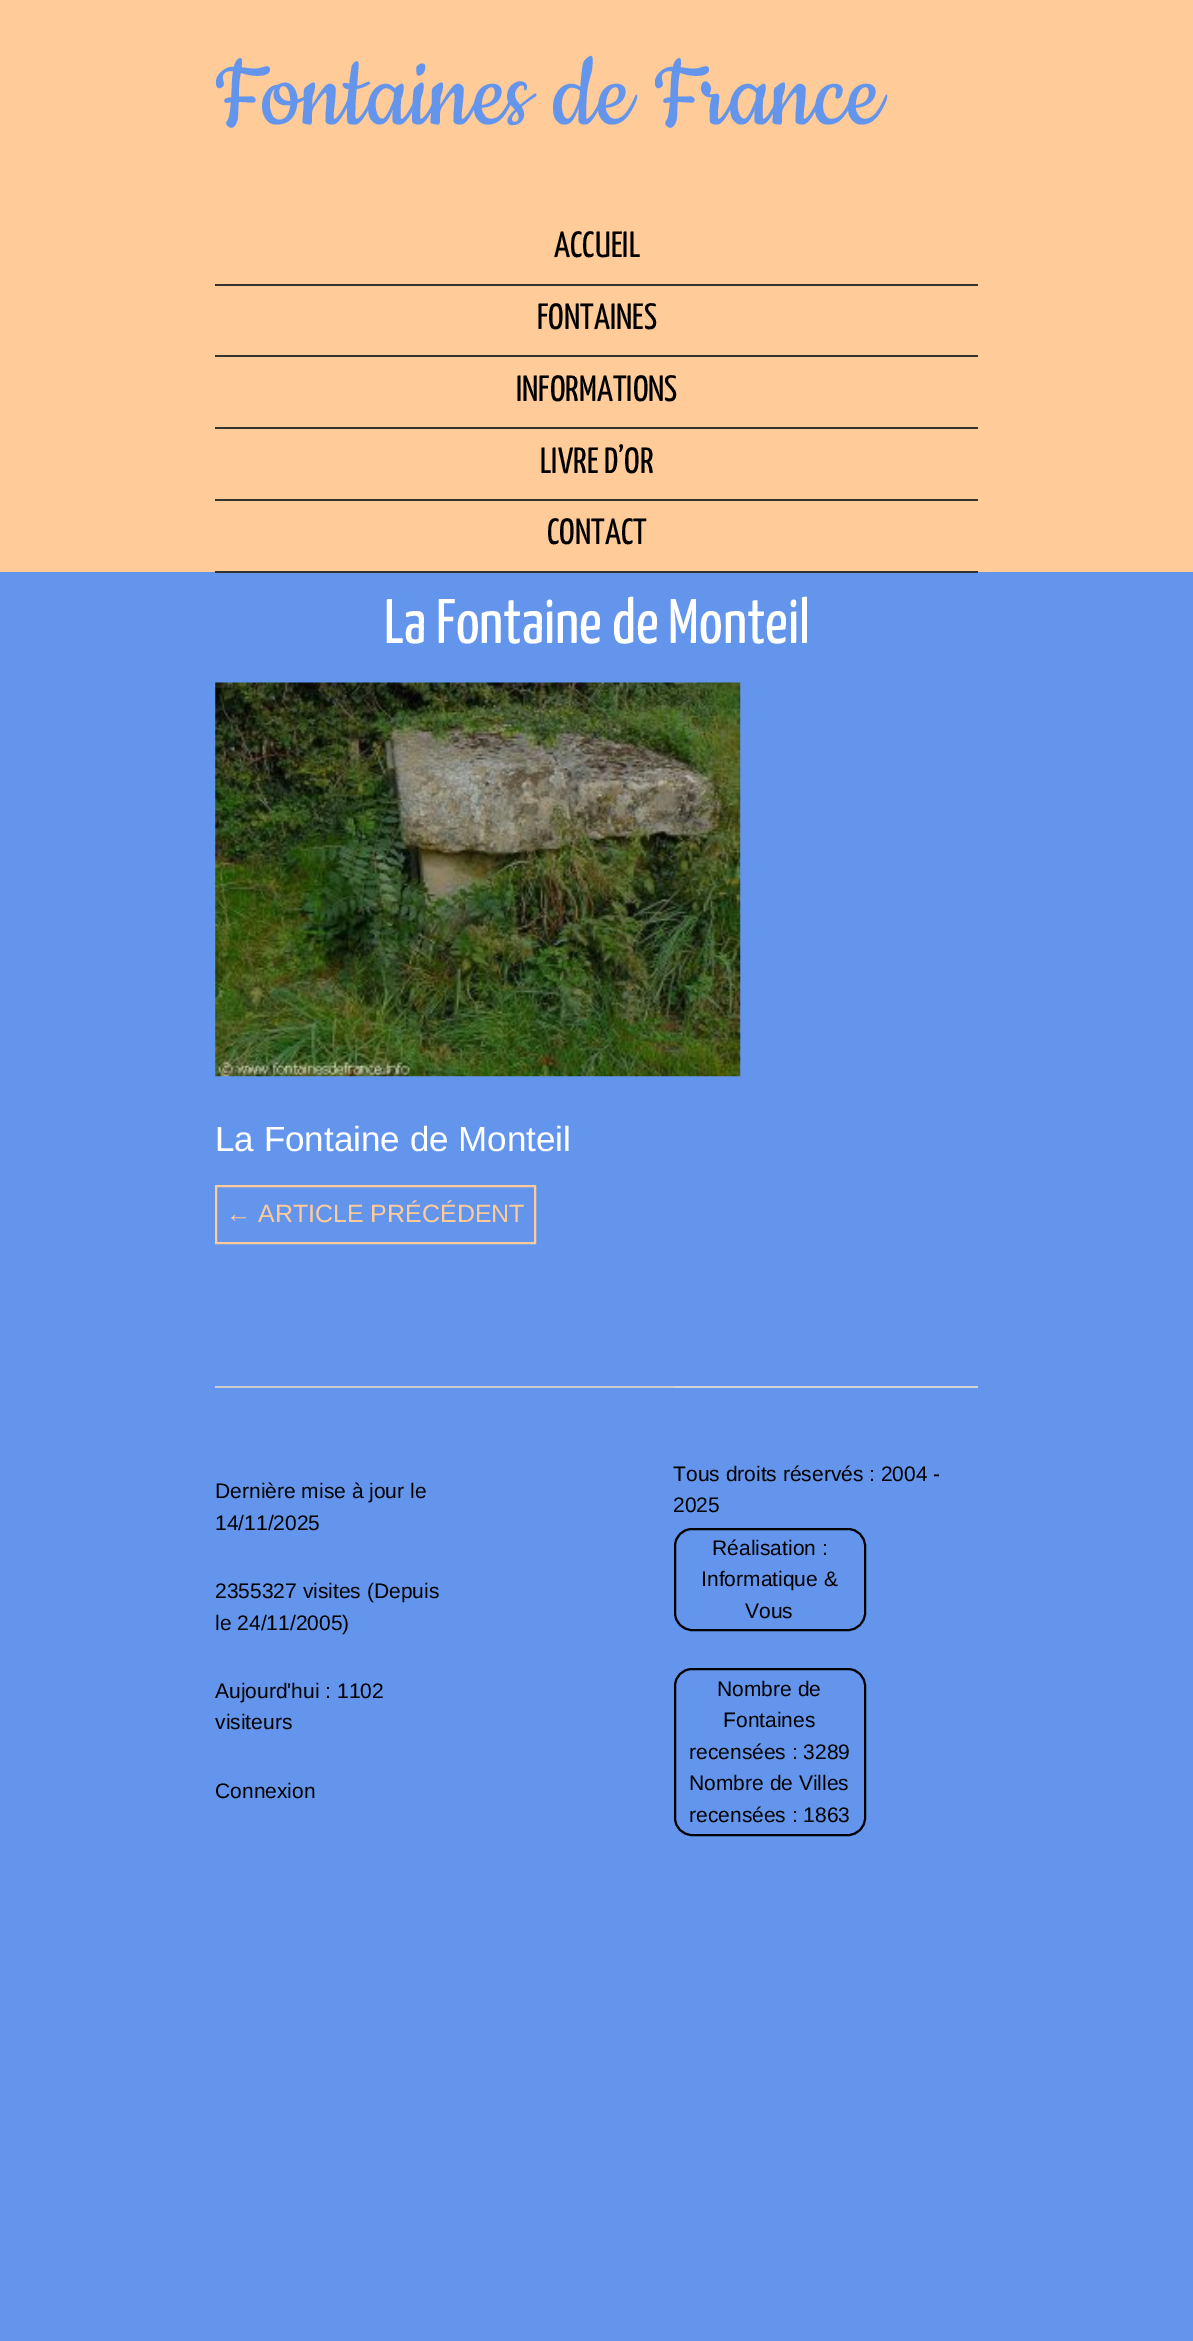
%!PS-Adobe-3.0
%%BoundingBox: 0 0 1193 2341
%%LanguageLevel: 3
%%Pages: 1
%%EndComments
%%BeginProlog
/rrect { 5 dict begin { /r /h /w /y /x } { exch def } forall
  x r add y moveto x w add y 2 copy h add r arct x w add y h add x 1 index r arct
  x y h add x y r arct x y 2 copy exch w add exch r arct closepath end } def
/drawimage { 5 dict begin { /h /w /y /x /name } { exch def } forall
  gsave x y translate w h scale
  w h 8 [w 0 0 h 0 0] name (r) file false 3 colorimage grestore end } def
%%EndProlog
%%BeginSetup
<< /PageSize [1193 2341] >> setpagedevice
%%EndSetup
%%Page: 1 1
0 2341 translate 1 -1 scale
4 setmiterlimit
0.392 0.584 0.929 setrgbcolor
0 0 1193 2341 rectfill
1 0.8 0.6 setrgbcolor
0 0 1193 572 rectfill
0.2 setgray
215 284 763 2 rectfill
215 355 763 2 rectfill
215 427 763 2 rectfill
215 499 763 2 rectfill
215 571 763 2 rectfill
(images/1.raw) 215 682 526 395 drawimage
1 0.8 0.6 setrgbcolor
2 setlinewidth
216 1186 319 57 rectstroke
0.8 setgray
215 1386 459 2 rectfill
0.827 setgray
674 1386 304 2 rectfill
0 setgray
675 1529 190 101 17 rrect stroke
675 1669 190 166 17 rrect stroke
/Cookie-Regular [113.75 0 0 -113.75 0 0] selectfont
0.392 0.584 0.929 setrgbcolor
215 124 moveto (Fontaines de France) show
/YanoneKaffeesatz-Regular [36.5 0 0 -36.5 0 0] selectfont
0 setgray
554 257 moveto (ACCUEIL) show
537 329 moveto (FONTAINES) show
516 401 moveto (INFORMATIONS) show
540 473 moveto (LIVRE D’OR) show
547 544 moveto (CONTACT) show
/YanoneKaffeesatz-Regular [63 0 0 -63 0 0] selectfont
1 setgray
384 643 moveto (La Fontaine de Monteil) show
/LiberationSans-Regular [35 0 0 -35 0 0] selectfont
215 1151 moveto (La Fontaine de Monteil) show
/LiberationSans-Regular [25 0 0 -25 0 0] selectfont
1 0.8 0.6 setrgbcolor
226 1222 moveto (← ARTICLE PRÉCÉDENT) show
/LiberationSans-Regular [21 0 0 -21 0 0] selectfont
0 setgray
215 1498 moveto (Dernière mise à jour le) show
215 1530 moveto (14/11/2025) show
215 1598 moveto (2355327 visites \(Depuis) show
215 1630 moveto (le 24/11/2005\)) show
215 1698 moveto (Aujourd'hui : 1102) show
215 1729 moveto (visiteurs) show
215 1798 moveto (Connexion) show
673 1481 moveto (Tous droits réservés : 2004 -) show
673 1512 moveto (2025) show
712 1555 moveto (Réalisation :) show
701 1586 moveto (Informatique &) show
745 1618 moveto (Vous) show
717 1696 moveto (Nombre de) show
723 1727 moveto (Fontaines) show
689 1759 moveto (recensées : 3289) show
689 1790 moveto (Nombre de Villes) show
689 1822 moveto (recensées : 1863) show
showpage
%%EOF
